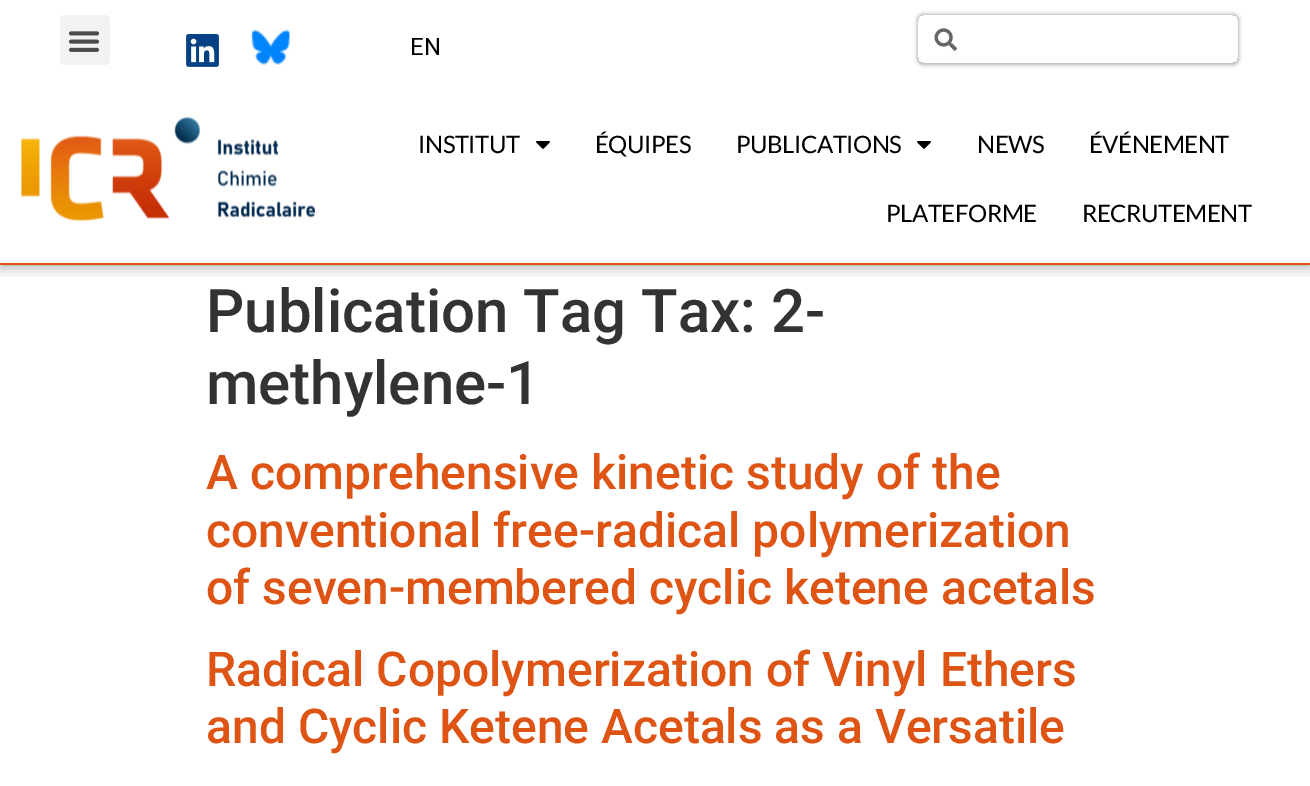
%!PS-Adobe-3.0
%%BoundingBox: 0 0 1310 786
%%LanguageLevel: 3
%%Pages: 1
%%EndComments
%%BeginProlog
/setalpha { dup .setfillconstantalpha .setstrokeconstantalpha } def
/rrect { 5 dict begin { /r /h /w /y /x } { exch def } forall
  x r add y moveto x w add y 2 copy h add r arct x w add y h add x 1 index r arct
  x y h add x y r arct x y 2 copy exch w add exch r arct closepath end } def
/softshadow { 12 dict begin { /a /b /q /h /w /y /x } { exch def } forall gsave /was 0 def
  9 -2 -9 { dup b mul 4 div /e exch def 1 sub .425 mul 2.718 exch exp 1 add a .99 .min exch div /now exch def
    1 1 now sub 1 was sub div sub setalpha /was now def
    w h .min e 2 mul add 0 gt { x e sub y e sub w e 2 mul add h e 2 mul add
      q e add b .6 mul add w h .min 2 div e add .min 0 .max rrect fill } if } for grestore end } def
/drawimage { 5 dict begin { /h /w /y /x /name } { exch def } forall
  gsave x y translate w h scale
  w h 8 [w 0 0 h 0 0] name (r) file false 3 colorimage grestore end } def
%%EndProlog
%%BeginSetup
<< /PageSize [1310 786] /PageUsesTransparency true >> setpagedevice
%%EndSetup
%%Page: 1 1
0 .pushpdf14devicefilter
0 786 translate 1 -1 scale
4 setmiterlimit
1 setgray
0 0 1310 786 rectfill
gsave
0 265 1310 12 rectclip
0 setgray
0 0 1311 264 0 7.5 0.5 softshadow
grestore
0.867 0.329 0.082 setrgbcolor
0 263 1310 2 rectfill
0.949 setgray
60 15 50 50 5 rrect fill
(images/1.raw) 68 31 32 21 drawimage
(images/2.raw) 186 34 33 33 drawimage
(images/3.raw) 251 29 39 36 drawimage
gsave
newpath 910 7 moveto 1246 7 lineto 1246 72 lineto 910 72 lineto closepath 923 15 moveto 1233 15 lineto 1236 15 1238 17 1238 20 curveto 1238 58 lineto 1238 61 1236 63 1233 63 curveto 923 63 lineto 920 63 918 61 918 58 curveto 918 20 lineto 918 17 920 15 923 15 curveto closepath eoclip newpath
0 setgray
917 14 322 51 6 2 0.3 softshadow
grestore
(images/4.raw) 934 28 23 23 drawimage
(images/5.raw) 21 117 294 105 drawimage
(images/6.raw) 536 141 14 8 drawimage
(images/6.raw) 917 141 14 8 drawimage
/Roboto-Regular [24 0 0 -24 0 0] selectfont
0 setgray
410 55 moveto (EN) show
/Lato-Regular [24 0 0 -24 0 0] selectfont
418 153 moveto -0.5 0 (INSTITUT) ashow
595 153 moveto -0.5 0 (ÉQUIPES) ashow
736 153 moveto -0.5 0 (PUBLICATIONS) ashow
977 153 moveto -0.5 0 (NEWS) ashow
1089 153 moveto -0.5 0 (ÉVÉNEMENT) ashow
886 222 moveto -0.5 0 (PLATEFORME) ashow
1082 222 moveto -0.5 0 (RECRUTEMENT) ashow
/Roboto-Medium [60 0 0 -60 0 0] selectfont
0.2 setgray
206 332 moveto (Publication Tag Tax: 2-) show
206 404 moveto (methylene-1) show
/Roboto-Medium [48 0 0 -48 0 0] selectfont
0.867 0.329 0.082 setrgbcolor
206 489 moveto (A comprehensive kinetic study of the) show
206 547 moveto (conventional free-radical polymerization) show
206 604 moveto (of seven-membered cyclic ketene acetals) show
206 686 moveto (Radical Copolymerization of Vinyl Ethers) show
206 743 moveto (and Cyclic Ketene Acetals as a Versatile) show
.poppdf14devicefilter showpage
%%EOF
